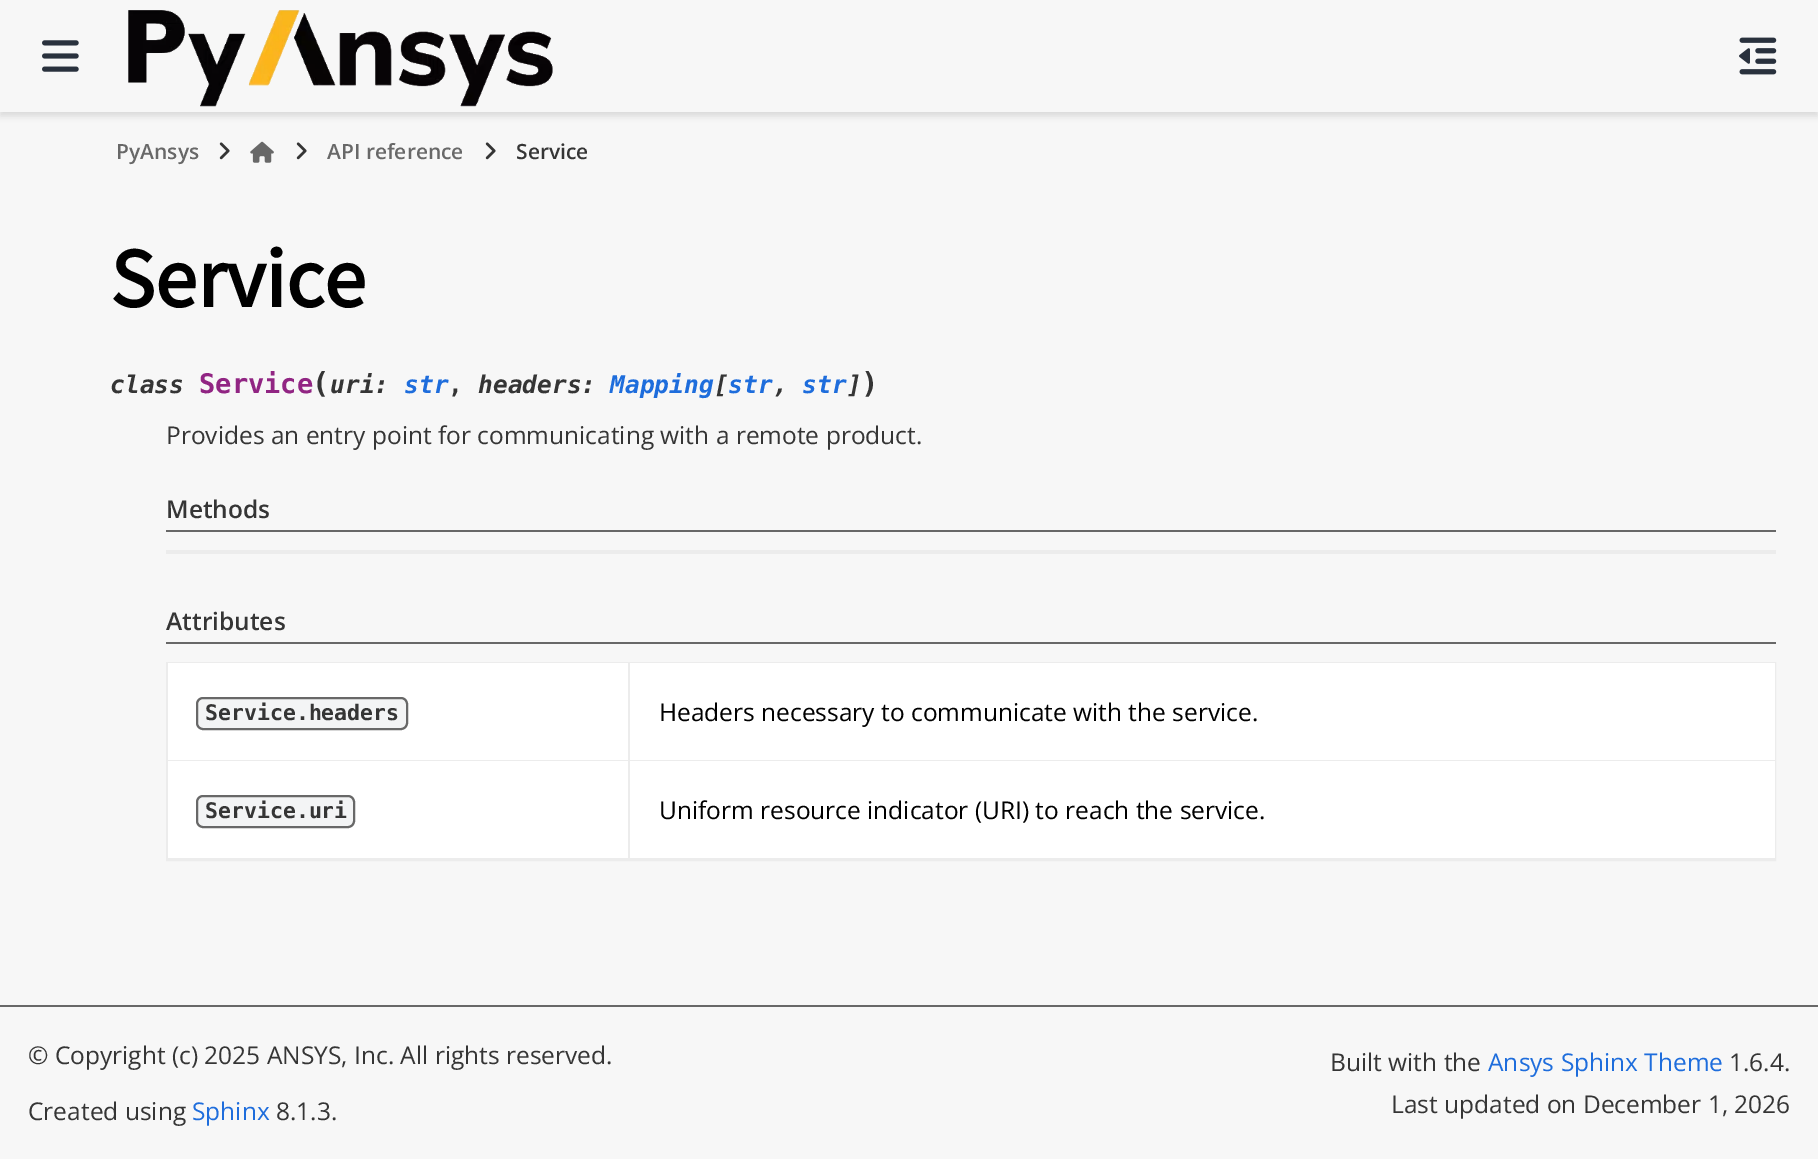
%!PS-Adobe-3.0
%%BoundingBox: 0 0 1818 1159
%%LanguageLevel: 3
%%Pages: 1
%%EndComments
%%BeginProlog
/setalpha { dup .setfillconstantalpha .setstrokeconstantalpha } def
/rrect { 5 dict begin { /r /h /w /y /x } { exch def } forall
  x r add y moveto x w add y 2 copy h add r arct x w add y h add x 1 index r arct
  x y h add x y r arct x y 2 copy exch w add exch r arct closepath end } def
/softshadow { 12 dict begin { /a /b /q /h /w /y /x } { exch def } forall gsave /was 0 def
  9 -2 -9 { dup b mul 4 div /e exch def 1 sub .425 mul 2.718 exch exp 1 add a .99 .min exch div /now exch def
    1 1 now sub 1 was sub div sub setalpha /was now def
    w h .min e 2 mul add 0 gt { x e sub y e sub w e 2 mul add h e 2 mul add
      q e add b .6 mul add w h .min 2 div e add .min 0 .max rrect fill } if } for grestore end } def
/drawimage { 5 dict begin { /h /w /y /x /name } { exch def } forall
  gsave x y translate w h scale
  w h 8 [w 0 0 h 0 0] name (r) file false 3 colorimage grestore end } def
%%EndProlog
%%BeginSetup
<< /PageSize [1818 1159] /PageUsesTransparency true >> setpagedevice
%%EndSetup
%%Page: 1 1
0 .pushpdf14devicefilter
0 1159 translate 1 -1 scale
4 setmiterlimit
0.969 setgray
0 0 1818 1159 rectfill
gsave
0 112 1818 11 rectclip
0.847 setgray
0 4 1818 112 0 3.5 1 softshadow
grestore
(images/1.raw) 42 40 37 32 drawimage
(images/2.raw) 128 10 425 97 drawimage
(images/3.raw) 1739 37 38 38 drawimage
(images/4.raw) 219 142 11 18 drawimage
(images/5.raw) 250 141 24 22 drawimage
(images/4.raw) 296 142 11 18 drawimage
(images/4.raw) 485 142 11 18 drawimage
0.408 setgray
166 530 1610 2 rectfill
0.925 setgray
166 550 1610 4 rectfill
0.408 setgray
166 642 1610 2 rectfill
0.925 setgray
2 setlinewidth
167 663 1608 197 rectstroke
168 858 1607 1 rectfill
168 760 1607 1 rectfill
1 setgray
168 663 460 97 rectfill
0.953 0.957 0.961 setrgbcolor
197 698 210 31 6 rrect gsave fill grestore
0.408 setgray
stroke
1 setgray
630 663 1145 97 rectfill
0.925 setgray
628 663 2 196 rectfill
1 setgray
168 761 460 97 rectfill
0.953 0.957 0.961 setrgbcolor
197 796 157 31 6 rrect gsave fill grestore
0.408 setgray
stroke
1 setgray
630 761 1145 97 rectfill
0.408 setgray
0 1005 1818 2 rectfill
/OpenSans-SemiBold [21 0 0 -21 0 0] selectfont
116 159 moveto (PyAnsys) show
327 159 moveto (API reference) show
0.208 setgray
516 159 moveto (Service) show
/SourceSansPro-Bold [84 0 0 -84 0 0] selectfont
0 setgray
110 307 moveto (Service) show
/DejaVuSansMono-BoldItalic [24.5 0 0 -24.5 0 0] selectfont
0.208 setgray
110 393 moveto (class) show
/DejaVuSansMono-Bold [27 0 0 -27 0 0] selectfont
0.569 0.145 0.514 setrgbcolor
199 393 moveto (Service) show
/DejaVuSansMono-Bold [29 0 0 -29 0 0] selectfont
0.208 setgray
312 393 moveto (\() show
/DejaVuSansMono-BoldItalic [24.5 0 0 -24.5 0 0] selectfont
330 393 moveto (uri:) show
478 393 moveto (headers:) show
0.118 0.427 0.863 setrgbcolor
610 393 moveto (Mapping str) show
/DejaVuSansMono-Bold [29 0 0 -29 0 0] selectfont
0.208 setgray
861 393 moveto (\)) show
/DejaVuSansMono-BoldItalic [24.5 0 0 -24.5 0 0] selectfont
0.118 0.427 0.863 setrgbcolor
404 393 moveto (str) show
/DejaVuSansMono-Bold [24.5 0 0 -24.5 0 0] selectfont
0.208 setgray
448 393 moveto (,) show
/DejaVuSansMono-BoldItalic [24.5 0 0 -24.5 0 0] selectfont
714 393 moveto ([) show
773 393 moveto (,) show
0.118 0.427 0.863 setrgbcolor
802 393 moveto (str) show
0.208 setgray
847 393 moveto (]) show
/OpenSans-Regular [24.5 0 0 -24.5 0 0] selectfont
166 444 moveto (Provides an entry point for communicating with a remote product.) show
/OpenSans-SemiBold [24.5 0 0 -24.5 0 0] selectfont
166 518 moveto (Methods) show
166 630 moveto (Attributes) show
/DejaVuSansMono-Bold [21.5 0 0 -21.5 0 0] selectfont
205 720 moveto (Service.headers) show
/OpenSans-Regular [24.5 0 0 -24.5 0 0] selectfont
0 setgray
659 721 moveto (Headers necessary to communicate with the service.) show
/DejaVuSansMono-Bold [21.5 0 0 -21.5 0 0] selectfont
0.208 setgray
205 818 moveto (Service.uri) show
/OpenSans-Regular [24.5 0 0 -24.5 0 0] selectfont
0 setgray
659 819 moveto (Uniform resource indicator \(URI\) to reach the service.) show
0.208 setgray
28 1064 moveto (© Copyright \(c\) 2025 ANSYS, Inc. All rights reserved.) show
28 1120 moveto (Created using) show
0.118 0.427 0.863 setrgbcolor
192 1120 moveto (Sphinx) show
0.208 setgray
276 1120 moveto (8.1.3.) show
1330 1071 moveto (Built with the) show
0.118 0.427 0.863 setrgbcolor
1488 1071 moveto (Ansys Sphinx Theme) show
0.208 setgray
1729 1071 moveto (1.6.4.) show
1391 1113 moveto (Last updated on December 1, 2026) show
.poppdf14devicefilter showpage
%%EOF
